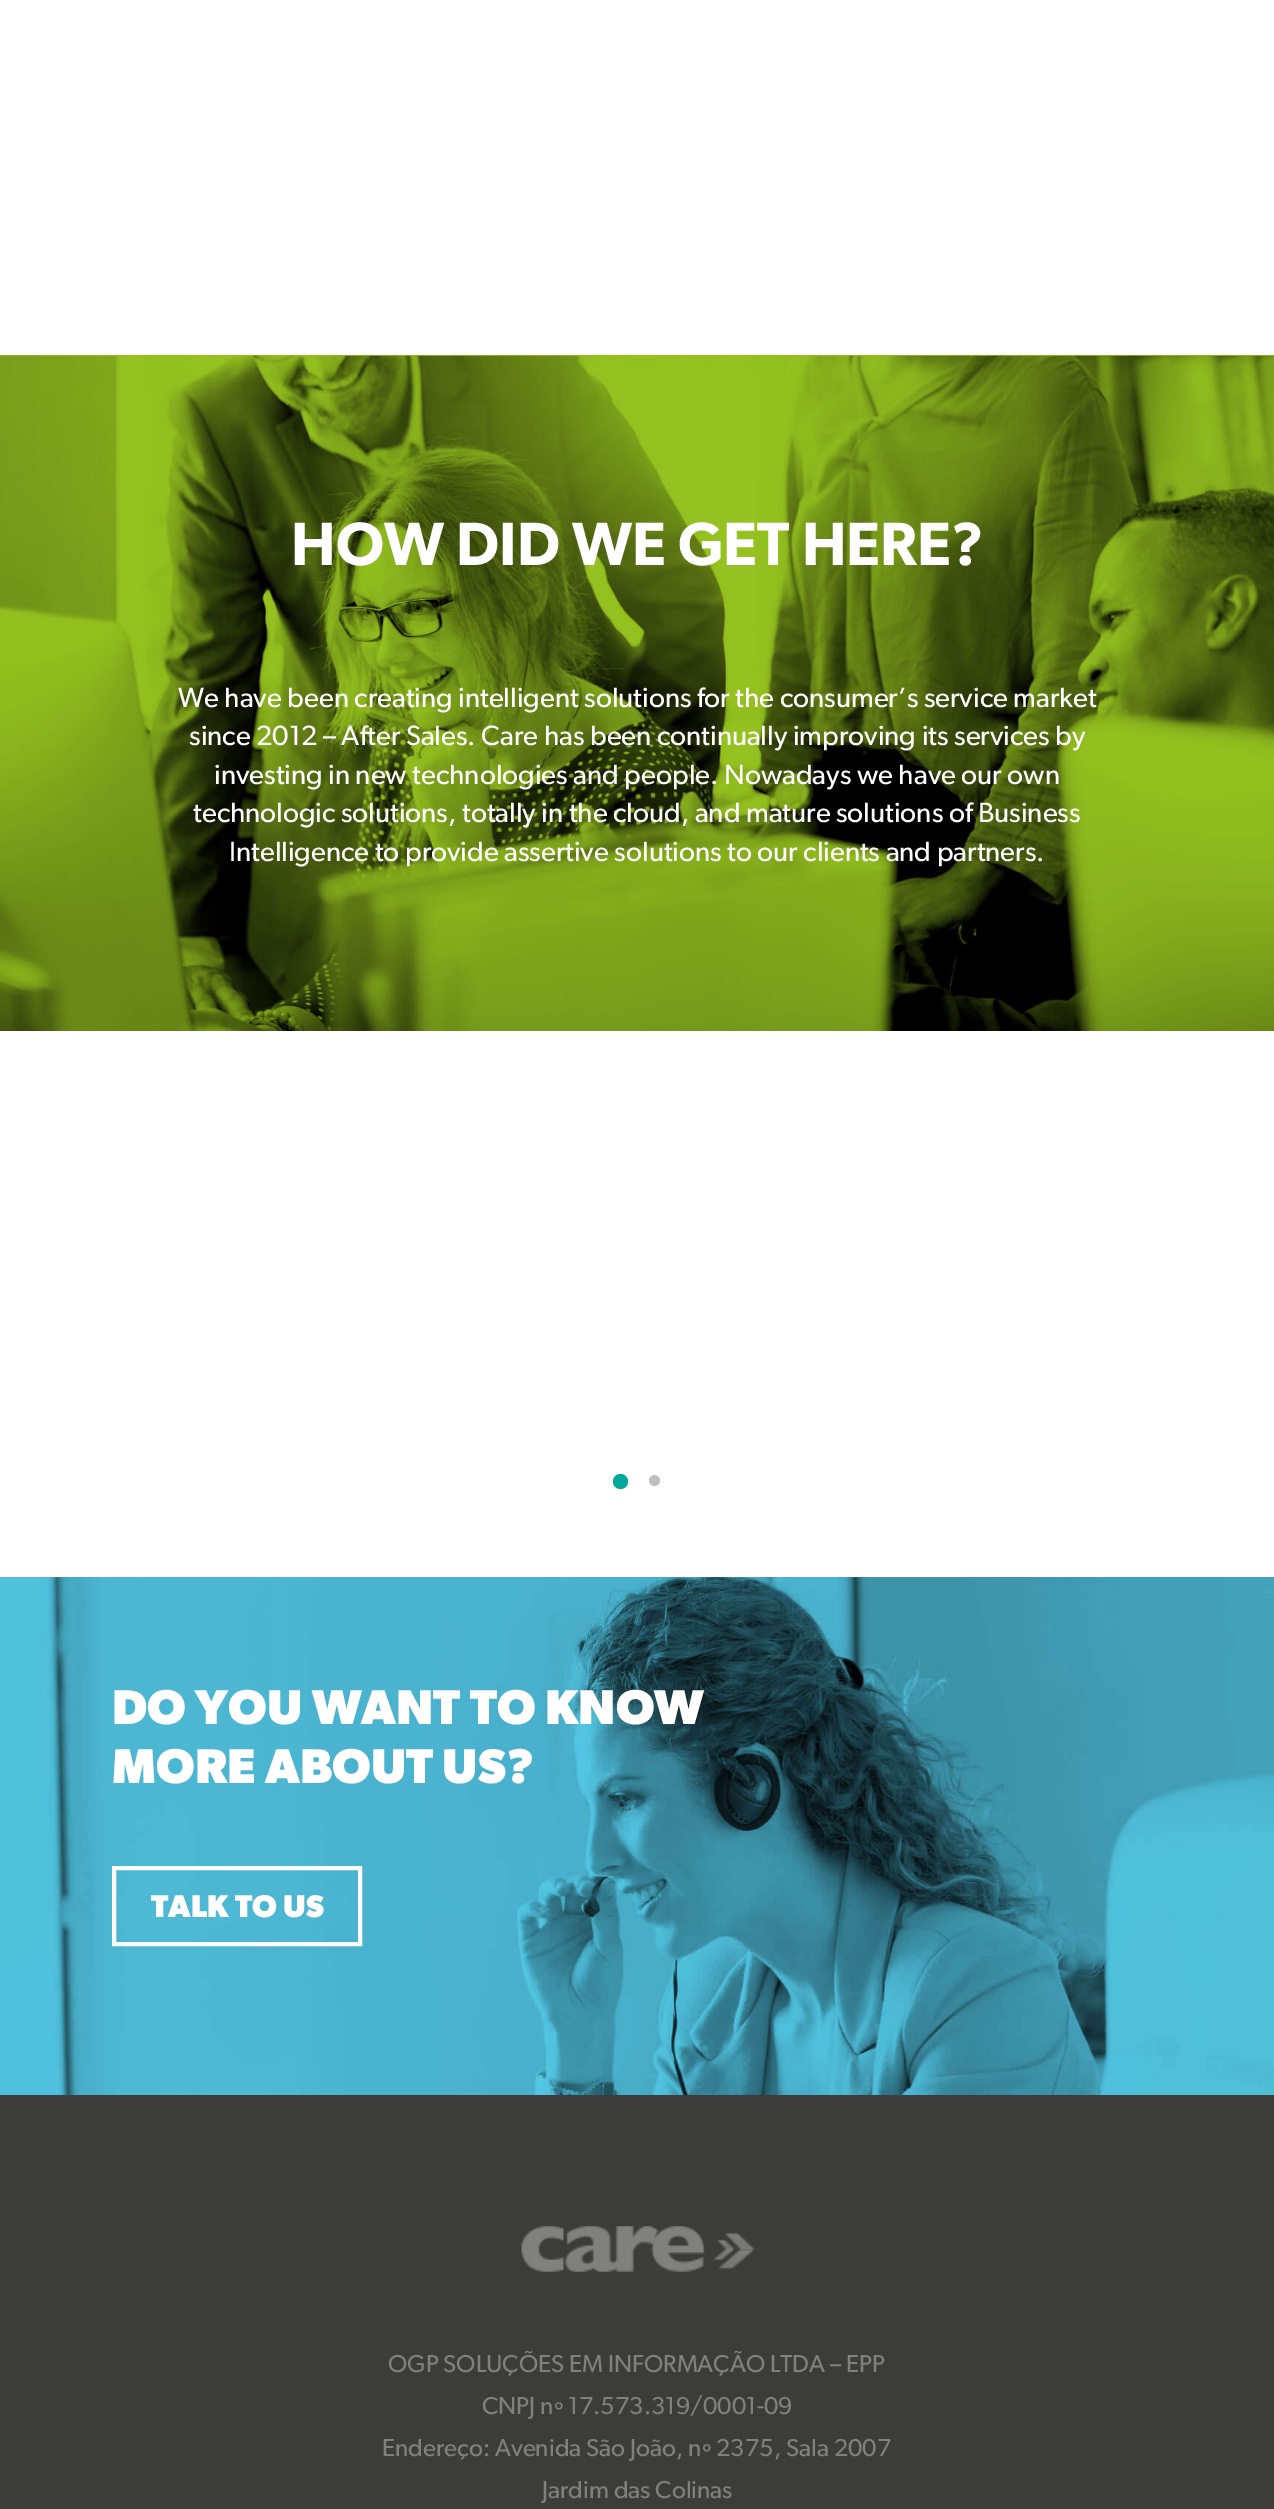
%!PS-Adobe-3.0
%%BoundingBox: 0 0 1274 2509
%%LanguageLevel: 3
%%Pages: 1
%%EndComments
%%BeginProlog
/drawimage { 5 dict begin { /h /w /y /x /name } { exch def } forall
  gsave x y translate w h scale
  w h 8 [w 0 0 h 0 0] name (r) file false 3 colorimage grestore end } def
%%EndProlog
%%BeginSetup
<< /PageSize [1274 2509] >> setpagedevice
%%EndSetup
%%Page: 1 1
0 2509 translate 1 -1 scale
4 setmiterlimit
1 setgray
0 0 1274 2509 rectfill
0.584 0.757 0.122 setrgbcolor
0 355 1274 1 rectfill
(images/1.raw) 0 355 1274 676 drawimage
0.004 0.663 0.616 setrgbcolor
newpath 620.5 1481.5 7.5 0 360 arc closepath fill
0.749 setgray
newpath 654.5 1480.5 5.5 0 360 arc closepath fill
(images/2.raw) 0 1577 1274 518 drawimage
1 setgray
4 setlinewidth
114 1868 246 76 rectstroke
0.235 0.235 0.231 setrgbcolor
0 2095 1274 414 rectfill
(images/3.raw) 521 2226 234 46 drawimage
/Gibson-SemiBold [61.25 0 0 -61.25 0 0] selectfont
1 setgray
291 565 moveto (HOW DID WE GET HERE?) show
/Gibson-Regular [28 0 0 -28 0 0] selectfont
178 707 moveto (We have been creating intelligent solutions for the consumer’s service market) show
189 745 moveto (since 2012 – After Sales. Care has been continually improving its services by) show
214 784 moveto (investing in new technologies and people. Nowadays we have our own) show
193 822 moveto (technologic solutions, totally in the cloud, and mature solutions of Business) show
229 861 moveto (Intelligence to provide assertive solutions to our clients and partners.) show
/Gibson-Bold [49 0 0 -49 0 0] selectfont
112 1724 moveto (DO YOU WANT TO KNOW) show
112 1783 moveto (MORE ABOUT US?) show
/Gibson-Bold [31.5 0 0 -31.5 0 0] selectfont
151 1917 moveto (TALK TO US) show
/Gibson-Regular [24.5 0 0 -24.5 0 0] selectfont
0.502 0.502 0.498 setrgbcolor
388 2372 moveto (OGP SOLUÇÕES EM INFORMAÇÃO LTDA – EPP) show
482 2414 moveto (CNPJ nº 17.573.319/0001-09) show
382 2456 moveto (Endereço: Avenida São João, nº 2375, Sala 2007) show
542 2498 moveto (Jardim das Colinas) show
showpage
%%EOF
